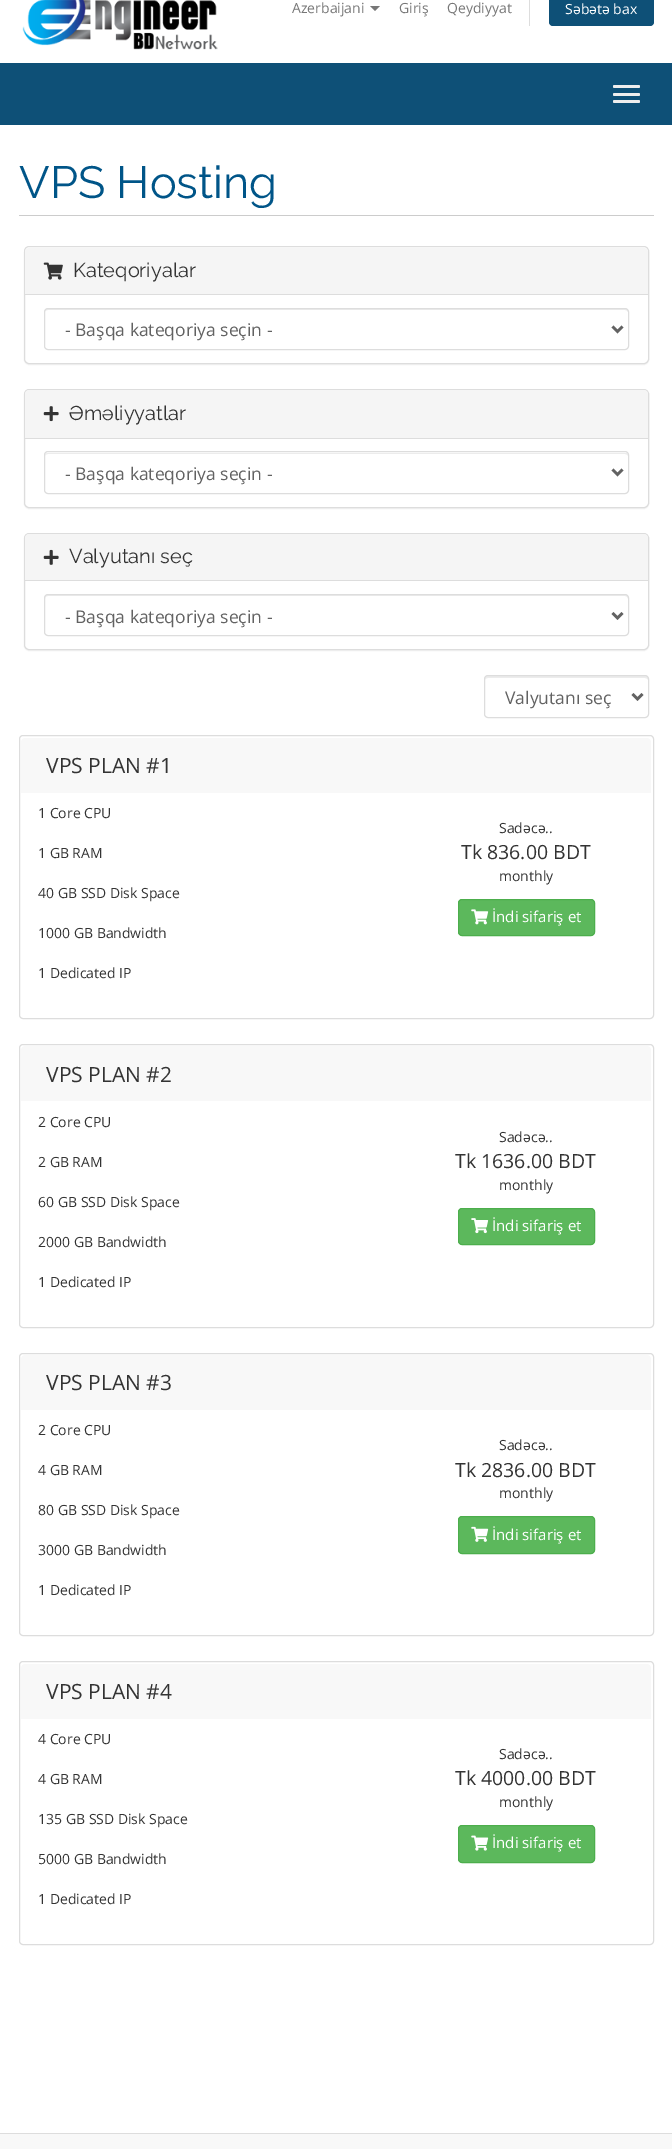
%!PS-Adobe-3.0
%%BoundingBox: 0 0 672 2149
%%LanguageLevel: 3
%%Pages: 1
%%EndComments
%%BeginProlog
/setalpha { dup .setfillconstantalpha .setstrokeconstantalpha } def
/rrect { 5 dict begin { /r /h /w /y /x } { exch def } forall
  x r add y moveto x w add y 2 copy h add r arct x w add y h add x 1 index r arct
  x y h add x y r arct x y 2 copy exch w add exch r arct closepath end } def
/softshadow { 12 dict begin { /a /b /q /h /w /y /x } { exch def } forall gsave /was 0 def
  9 -2 -9 { dup b mul 4 div /e exch def 1 sub .425 mul 2.718 exch exp 1 add a .99 .min exch div /now exch def
    1 1 now sub 1 was sub div sub setalpha /was now def
    w h .min e 2 mul add 0 gt { x e sub y e sub w e 2 mul add h e 2 mul add
      q e add b .6 mul add w h .min 2 div e add .min 0 .max rrect fill } if } for grestore end } def
/drawimage { 5 dict begin { /h /w /y /x /name } { exch def } forall
  gsave x y translate w h scale
  w h 8 [w 0 0 h 0 0] name (r) file false 3 colorimage grestore end } def
%%EndProlog
%%BeginSetup
<< /PageSize [672 2149] /PageUsesTransparency true >> setpagedevice
%%EndSetup
%%Page: 1 1
0 .pushpdf14devicefilter
0 2149 translate 1 -1 scale
4 setmiterlimit
0.973 setgray
0 0 672 2149 rectfill
1 setgray
0 0 672 63 rectfill
(images/1.raw) 22 0 196 50 drawimage
0.467 setgray
newpath 370 6 moveto 380 6 lineto 375 11 lineto closepath fill
0.867 setgray
529 0 1 26 rectfill
0.055 0.314 0.467 setrgbcolor
549 -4 105 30 4 rrect fill
0 63 672 62 rectfill
0.933 setgray
613 85 27 3 1.5 rrect fill
613 93 27 3 1.5 rrect fill
613 100 27 3 1.5 rrect fill
1 setgray
0 125 672 2008 rectfill
0.8 setgray
19 215 635 1 rectfill
0 setgray
24 248 625 117 5 0.5 0.05 softshadow
1 setgray
24.5 246.5 624 117 4.5 rrect gsave fill grestore
0.867 setgray
stroke
0.961 setgray
newpath 29 248 moveto 644 248 lineto 646 248 648 250 648 252 curveto 648 295 lineto 25 295 lineto 25 252 lineto 25 250 27 248 29 248 curveto closepath fill
0.867 setgray
25 294 623 1 rectfill
(images/2.raw) 43 262 20 18 drawimage
0.925 setgray
newpath 48 310 moveto 625 310 lineto 626 310 628 311 628 312 curveto 628 310 627 309 626 309 curveto 48 309 lineto 46 309 45 310 45 312 curveto 45 311 46 310 48 310 curveto closepath fill
0.867 setgray
44.5 308.5 584 41 3.5 rrect stroke
0.384 setgray
2.5 setlinewidth
newpath 612.5 326.5 moveto 617.5 331.5 lineto 622.5 326.5 lineto stroke
0 setgray
24 390 625 119 5 0.5 0.05 softshadow
1 setgray
24.5 389.5 624 118 4.5 rrect gsave fill grestore
0.867 setgray
1 setlinewidth
stroke
0.961 setgray
newpath 29 390 moveto 644 390 lineto 646 390 648 392 648 394 curveto 648 439 lineto 25 439 lineto 25 394 lineto 25 392 27 390 29 390 curveto closepath fill
0.867 setgray
25 438 623 1 rectfill
(images/3.raw) 43 406 16 16 drawimage
0.925 setgray
newpath 48 454 moveto 625 454 lineto 626 454 628 455 628 456 curveto 628 454 627 453 626 453 curveto 48 453 lineto 46 453 45 454 45 456 curveto 45 455 46 454 48 454 curveto closepath fill
0.867 setgray
44.5 451.5 584 42 3.5 rrect stroke
0.384 setgray
2.5 setlinewidth
newpath 612.5 469.5 moveto 617.5 474.5 lineto 622.5 469.5 lineto stroke
0 setgray
24 534 625 117 5 0.5 0.05 softshadow
1 setgray
24.5 533.5 624 116 4.5 rrect gsave fill grestore
0.867 setgray
1 setlinewidth
stroke
0.961 setgray
newpath 29 534 moveto 644 534 lineto 646 534 648 536 648 538 curveto 648 581 lineto 25 581 lineto 25 538 lineto 25 536 27 534 29 534 curveto closepath fill
0.867 setgray
25 580 623 1 rectfill
(images/4.raw) 43 549 16 16 drawimage
0.925 setgray
newpath 48 596 moveto 625 596 lineto 626 596 628 597 628 599 curveto 628 598 lineto 628 596 627 595 626 595 curveto 48 595 lineto 46 595 45 596 45 598 curveto 45 599 lineto 45 597 46 596 48 596 curveto closepath fill
0.867 setgray
44.5 594.5 584 41 3.5 rrect stroke
0.384 setgray
2.5 setlinewidth
newpath 612.5 613 moveto 617.5 618 lineto 622.5 613 lineto stroke
0.925 setgray
newpath 488 678 moveto 645 678 lineto 646 678 648 679 648 680 curveto 648 678 648 676 646 676 curveto 488 676 lineto 485 676 485 678 485 680 curveto 485 679 486 678 488 678 curveto closepath fill
0.867 setgray
1 setlinewidth
484.5 675.5 164 42 3.5 rrect stroke
0.384 setgray
2.5 setlinewidth
newpath 632.5 694 moveto 637.5 699 lineto 642.5 694 lineto stroke
0.867 setgray
1 setlinewidth
19.5 735.5 634 283 3.5 rrect stroke
0.973 setgray
newpath 25 738 moveto 647 738 lineto 649 738 651 740 651 742 curveto 651 793 lineto 21 793 lineto 21 742 lineto 21 740 23 738 25 738 curveto closepath fill
0.361 0.722 0.361 setrgbcolor
458.5 899.5 136 36 3.5 rrect gsave fill grestore
0.298 0.682 0.298 setrgbcolor
stroke
(images/5.raw) 471 909 18 16 drawimage
0.867 setgray
19.5 1044.5 634 283 3.5 rrect stroke
0.973 setgray
newpath 25 1046 moveto 647 1046 lineto 649 1046 651 1048 651 1050 curveto 651 1101 lineto 21 1101 lineto 21 1050 lineto 21 1048 23 1046 25 1046 curveto closepath fill
0.361 0.722 0.361 setrgbcolor
458.5 1208.5 136 36 3.5 rrect gsave fill grestore
0.298 0.682 0.298 setrgbcolor
stroke
(images/6.raw) 471 1218 18 16 drawimage
0.867 setgray
19.5 1353.5 634 282 3.5 rrect stroke
0.973 setgray
newpath 25 1355 moveto 647 1355 lineto 649 1355 651 1357 651 1359 curveto 651 1410 lineto 21 1410 lineto 21 1359 lineto 21 1357 23 1355 25 1355 curveto closepath fill
0.361 0.722 0.361 setrgbcolor
458.5 1516.5 136 37 3.5 rrect gsave fill grestore
0.298 0.682 0.298 setrgbcolor
stroke
(images/7.raw) 471 1526 18 16 drawimage
0.867 setgray
19.5 1661.5 634 283 3.5 rrect stroke
0.973 setgray
newpath 25 1664 moveto 647 1664 lineto 649 1664 651 1666 651 1668 curveto 651 1719 lineto 21 1719 lineto 21 1668 lineto 21 1666 23 1664 25 1664 curveto closepath fill
0.361 0.722 0.361 setrgbcolor
458.5 1825.5 136 37 3.5 rrect gsave fill grestore
0.298 0.682 0.298 setrgbcolor
stroke
(images/8.raw) 471 1835 18 16 drawimage
0.867 setgray
0 2133 672 1 rectfill
/OpenSans-Regular [14 0 0 -14 0 0] selectfont
0.467 setgray
292 13 moveto (Azerbaijani) show
399 13 moveto (Giriş) show
447 13 moveto (Qeydiyyat) show
1 setgray
565 14 moveto (Səbətə bax) show
/Raleway-Regular [45 0 0 -45 0 0] selectfont
0 0.333 0.533 setrgbcolor
19 198 moveto (VPS Hosting) show
/Raleway-Regular [20 0 0 -20 0 0] selectfont
0.2 setgray
73 277 moveto (Kateqoriyalar) show
/OpenSans-Regular [17.5 0 0 -17.5 0 0] selectfont
0.384 setgray
65 336 moveto (- Başqa kateqoriya seçin -) show
/Raleway-Regular [20 0 0 -20 0 0] selectfont
0.2 setgray
69 420 moveto (Əməliyyatlar) show
/OpenSans-Regular [17.5 0 0 -17.5 0 0] selectfont
0.384 setgray
65 480 moveto (- Başqa kateqoriya seçin -) show
/Raleway-Regular [20 0 0 -20 0 0] selectfont
0.2 setgray
69 563 moveto (Valyutanı seç) show
/OpenSans-Regular [17.5 0 0 -17.5 0 0] selectfont
0.384 setgray
65 623 moveto (- Başqa kateqoriya seçin -) show
505 704 moveto (Valyutanı seç) show
/OpenSans-Regular [21 0 0 -21 0 0] selectfont
0.2 setgray
46 773 moveto (VPS PLAN #1) show
/OpenSans-Regular [14 0 0 -14 0 0] selectfont
38 818 moveto (1 Core CPU) show
38 858 moveto (1 GB RAM) show
38 898 moveto (40 GB SSD Disk Space) show
38 938 moveto (1000 GB Bandwidth) show
38 978 moveto (1 Dedicated IP) show
499 833 moveto (Sadəcə..) show
/OpenSans-Regular [19.5 0 0 -19.5 0 0] selectfont
461 859 moveto (Tk 836.00 BDT) show
/OpenSans-Regular [14 0 0 -14 0 0] selectfont
499 881 moveto (monthly) show
/OpenSans-Regular [15 0 0 -15 0 0] selectfont
1 setgray
492 922 moveto (İndi sifariş et) show
/OpenSans-Regular [21 0 0 -21 0 0] selectfont
0.2 setgray
46 1082 moveto (VPS PLAN #2) show
/OpenSans-Regular [14 0 0 -14 0 0] selectfont
38 1127 moveto (2 Core CPU) show
38 1167 moveto (2 GB RAM) show
38 1207 moveto (60 GB SSD Disk Space) show
38 1247 moveto (2000 GB Bandwidth) show
38 1287 moveto (1 Dedicated IP) show
499 1142 moveto (Sadəcə..) show
/OpenSans-Regular [19.5 0 0 -19.5 0 0] selectfont
455 1168 moveto (Tk 1636.00 BDT) show
/OpenSans-Regular [14 0 0 -14 0 0] selectfont
499 1190 moveto (monthly) show
/OpenSans-Regular [15 0 0 -15 0 0] selectfont
1 setgray
492 1231 moveto (İndi sifariş et) show
/OpenSans-Regular [21 0 0 -21 0 0] selectfont
0.2 setgray
46 1390 moveto (VPS PLAN #3) show
/OpenSans-Regular [14 0 0 -14 0 0] selectfont
38 1435 moveto (2 Core CPU) show
38 1475 moveto (4 GB RAM) show
38 1515 moveto (80 GB SSD Disk Space) show
38 1555 moveto (3000 GB Bandwidth) show
38 1595 moveto (1 Dedicated IP) show
499 1450 moveto (Sadəcə..) show
/OpenSans-Regular [19.5 0 0 -19.5 0 0] selectfont
455 1477 moveto (Tk 2836.00 BDT) show
/OpenSans-Regular [14 0 0 -14 0 0] selectfont
499 1498 moveto (monthly) show
/OpenSans-Regular [15 0 0 -15 0 0] selectfont
1 setgray
492 1540 moveto (İndi sifariş et) show
/OpenSans-Regular [21 0 0 -21 0 0] selectfont
0.2 setgray
46 1699 moveto (VPS PLAN #4) show
/OpenSans-Regular [14 0 0 -14 0 0] selectfont
38 1744 moveto (4 Core CPU) show
38 1784 moveto (4 GB RAM) show
38 1824 moveto (135 GB SSD Disk Space) show
38 1864 moveto (5000 GB Bandwidth) show
38 1904 moveto (1 Dedicated IP) show
499 1759 moveto (Sadəcə..) show
/OpenSans-Regular [19.5 0 0 -19.5 0 0] selectfont
455 1785 moveto (Tk 4000.00 BDT) show
/OpenSans-Regular [14 0 0 -14 0 0] selectfont
499 1807 moveto (monthly) show
/OpenSans-Regular [15 0 0 -15 0 0] selectfont
1 setgray
492 1848 moveto (İndi sifariş et) show
.poppdf14devicefilter showpage
%%EOF
